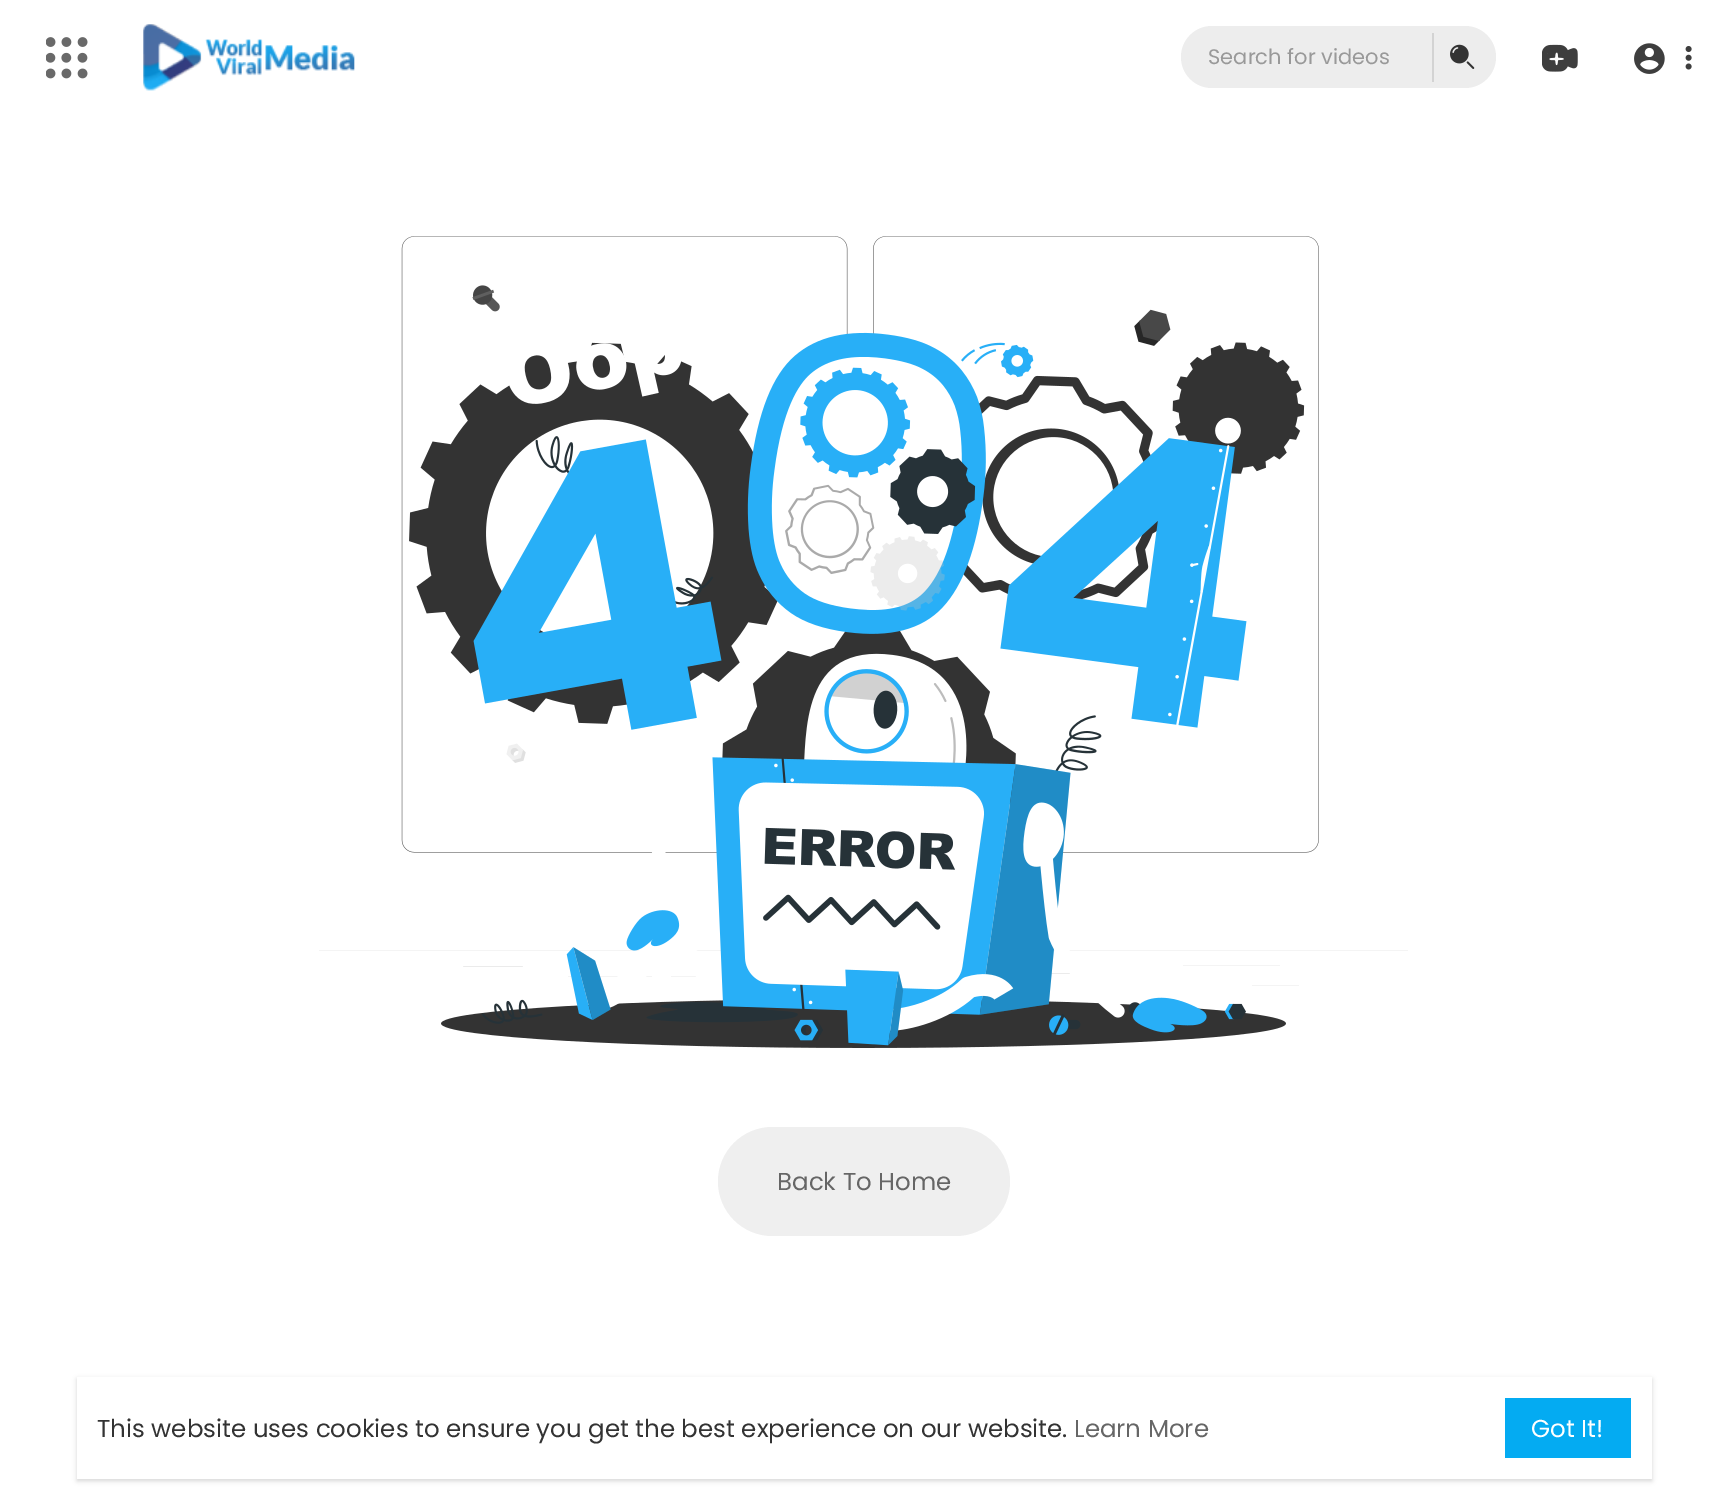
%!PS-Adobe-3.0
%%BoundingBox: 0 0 1726 1505
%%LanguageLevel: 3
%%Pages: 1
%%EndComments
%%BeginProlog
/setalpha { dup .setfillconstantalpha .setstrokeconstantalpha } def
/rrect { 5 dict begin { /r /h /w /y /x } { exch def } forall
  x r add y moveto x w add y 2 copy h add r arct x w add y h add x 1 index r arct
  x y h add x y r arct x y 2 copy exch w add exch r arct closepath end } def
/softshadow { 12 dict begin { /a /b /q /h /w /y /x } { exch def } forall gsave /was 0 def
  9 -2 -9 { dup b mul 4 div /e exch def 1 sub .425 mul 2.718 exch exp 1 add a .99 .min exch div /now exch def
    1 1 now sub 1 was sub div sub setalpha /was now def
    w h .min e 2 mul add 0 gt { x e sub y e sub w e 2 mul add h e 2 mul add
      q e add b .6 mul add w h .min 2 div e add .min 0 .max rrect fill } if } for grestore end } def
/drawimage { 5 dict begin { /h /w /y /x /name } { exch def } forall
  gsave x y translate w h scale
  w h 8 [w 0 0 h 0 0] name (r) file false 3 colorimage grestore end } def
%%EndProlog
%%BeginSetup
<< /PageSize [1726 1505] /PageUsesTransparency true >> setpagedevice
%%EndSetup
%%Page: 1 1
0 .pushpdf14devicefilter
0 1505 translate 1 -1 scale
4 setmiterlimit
1 setgray
0 0 1726 1505 rectfill
(images/1.raw) 46 37 42 42 drawimage
(images/2.raw) 143 24 212 67 drawimage
0.929 setgray
1181 26 315 62 31 rrect fill
0.827 setgray
1432 33 2 49 rectfill
(images/3.raw) 1450 44 25 25 drawimage
(images/4.raw) 1542 44 36 28 drawimage
(images/5.raw) 1634 43 31 31 drawimage
(images/6.raw) 1685 46 7 24 drawimage
(images/7.raw) 319 236 1089 812 drawimage
0.937 setgray
718 1127 292 109 54.5 rrect fill
0 setgray
77 1379 1575 102 0 2 0.06 softshadow
77 1379 1575 102 0 2.5 0.1 softshadow
1 setgray
77 1377 1575 102 rectfill
0.016 0.671 0.949 setrgbcolor
1505 1398 126 60 rectfill
/Poppins-Regular [21 0 0 -21 0 0] selectfont
0.6 setgray
1208 64 moveto (Search for videos) show
/Poppins-Regular [24.5 0 0 -24.5 0 0] selectfont
0.4 setgray
777 1190 moveto (Back To Home) show
0.2 setgray
97 1437 moveto (This website uses cookies to ensure you get the best experience on our website.) show
0.4 setgray
1074 1437 moveto (Learn More) show
1 setgray
1531 1437 moveto (Got It!) show
.poppdf14devicefilter showpage
%%EOF
